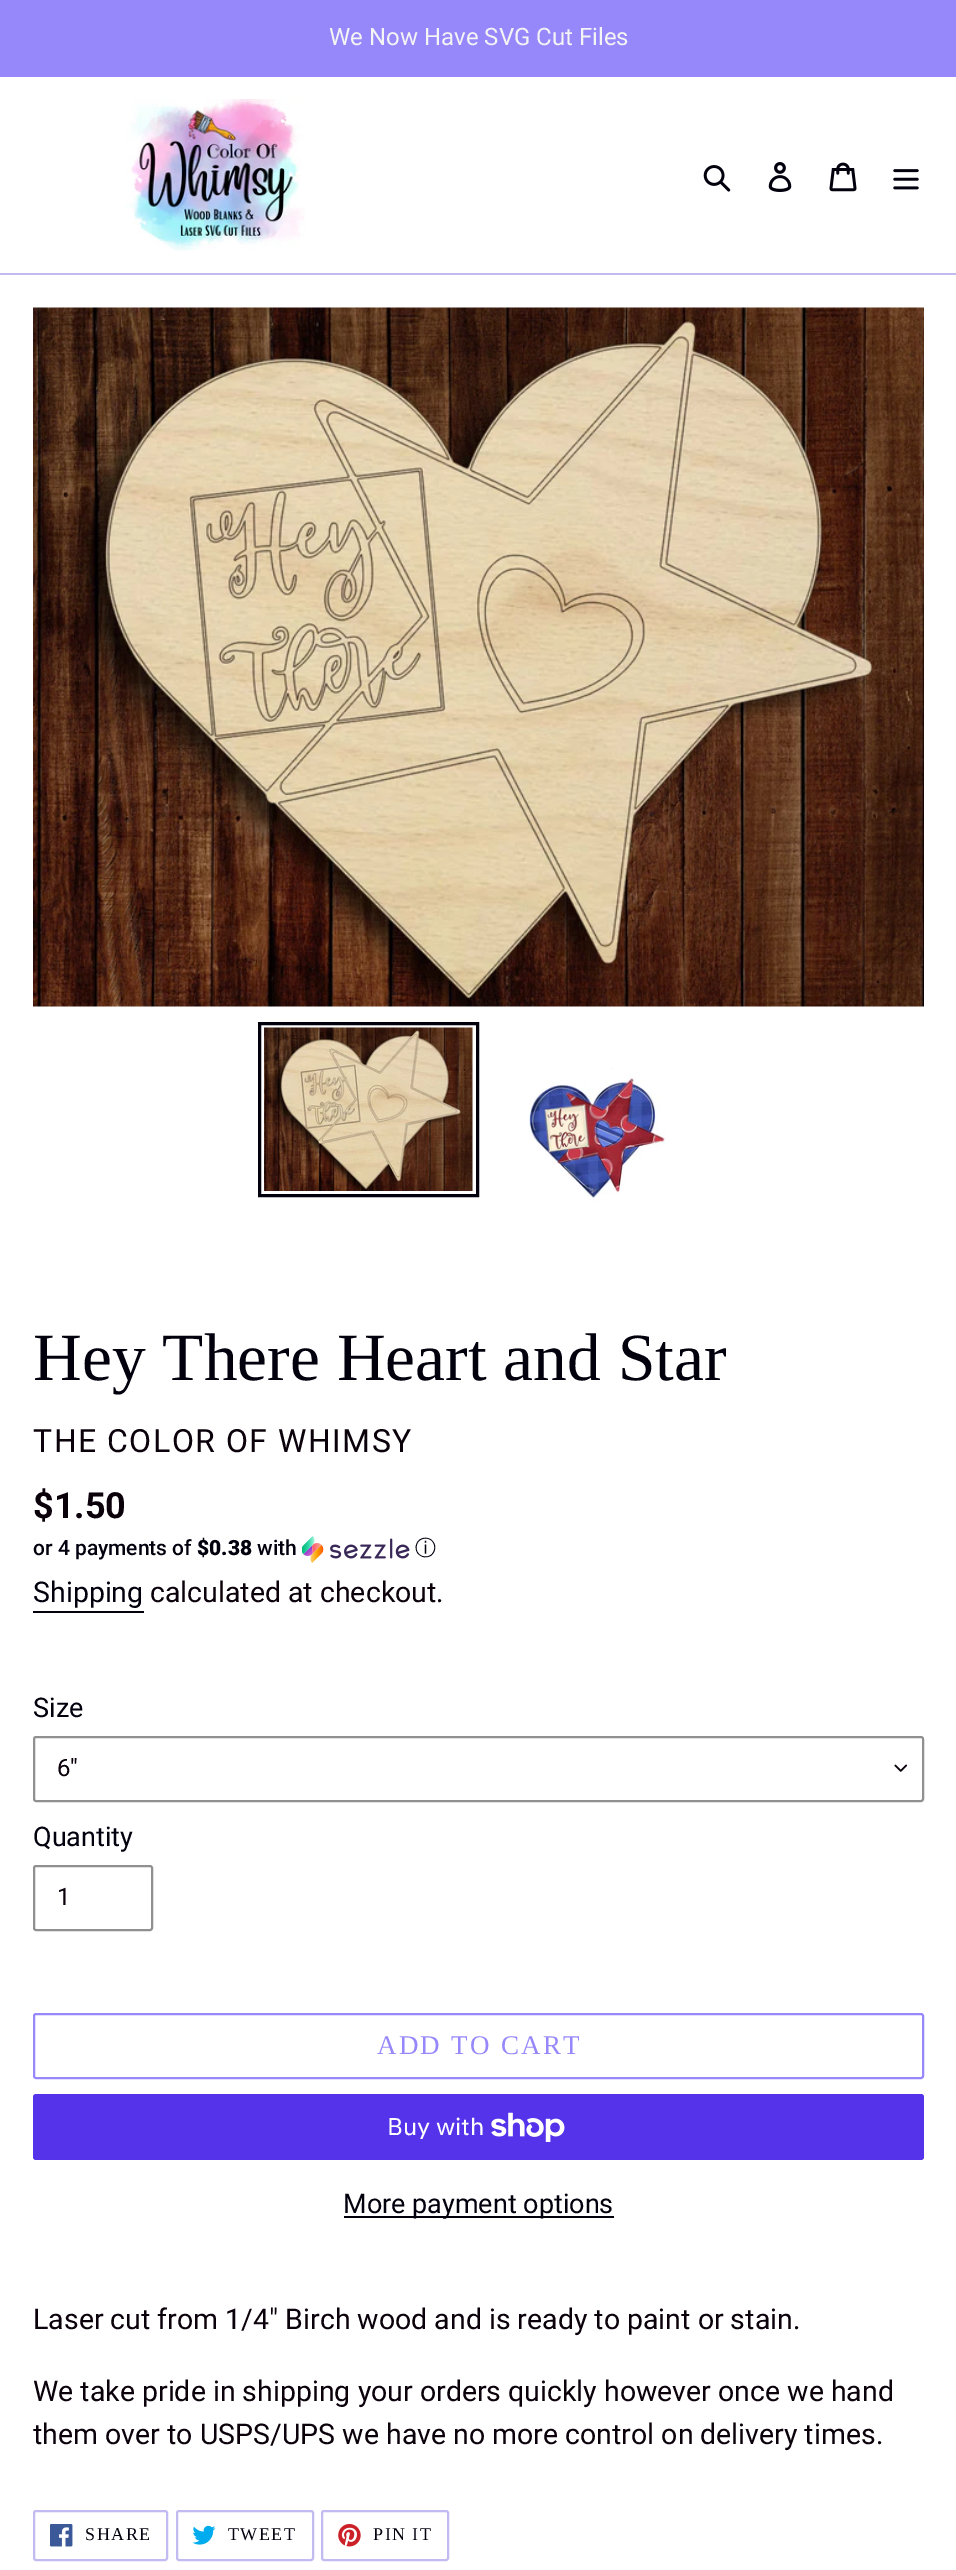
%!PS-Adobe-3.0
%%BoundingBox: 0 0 956 2570
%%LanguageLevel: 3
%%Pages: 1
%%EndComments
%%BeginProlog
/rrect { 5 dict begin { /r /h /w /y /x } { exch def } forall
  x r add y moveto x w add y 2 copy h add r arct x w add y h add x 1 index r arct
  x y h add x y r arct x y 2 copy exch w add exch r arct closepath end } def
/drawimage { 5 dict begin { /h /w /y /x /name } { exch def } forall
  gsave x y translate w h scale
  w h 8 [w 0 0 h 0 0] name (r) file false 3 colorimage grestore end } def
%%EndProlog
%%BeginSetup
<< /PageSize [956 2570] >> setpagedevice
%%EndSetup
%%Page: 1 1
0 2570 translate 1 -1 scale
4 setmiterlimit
1 setgray
0 0 956 2570 rectfill
0.588 0.533 0.98 setrgbcolor
0 0 956 77 rectfill
0.757 0.733 0.945 setrgbcolor
0 273 956 2 rectfill
(images/1.raw) 125 99 180 152 drawimage
(images/2.raw) 703 165 28 27 drawimage
(images/3.raw) 768 162 24 30 drawimage
(images/4.raw) 829 162 28 30 drawimage
(images/5.raw) 893 169 26 21 drawimage
(images/6.raw) 33 307 891 700 drawimage
0.012 0 0.051 setrgbcolor
3 setlinewidth
259.5 1023.5 218 172 rectstroke
(images/7.raw) 264 1027 209 164 drawimage
(images/8.raw) 529 1068 137 134 drawimage
(images/9.raw) 302 1536 108 27 drawimage
33 1611 111 2 rectfill
(images/10.raw) 894 1764 14 8 drawimage
0.565 setgray
2 setlinewidth
34 1737 889 64 2 rrect stroke
34 1866 118 64 2 rrect stroke
0.588 0.533 0.98 setrgbcolor
34 2014 889 64 2 rrect stroke
0.329 0.2 0.922 setrgbcolor
33 2094 891 66 3 rrect fill
(images/11.raw) 491 2112 74 30 drawimage
0.012 0 0.051 setrgbcolor
344 2216 270 2 rectfill
0.757 0.733 0.945 setrgbcolor
34 2511 133 49 2 rrect stroke
(images/12.raw) 50 2524 23 23 drawimage
177 2511 136 49 2 rrect stroke
(images/13.raw) 192 2525 24 20 drawimage
322 2511 126 49 2 rrect stroke
(images/14.raw) 338 2524 23 23 drawimage
/Roboto-Regular [24 0 0 -24 0 0] selectfont
0.957 setgray
329 45 moveto (We Now Have SVG Cut Files) show
/LiberationSerif-Regular [67.5 0 0 -67.5 0 0] selectfont
0.012 0 0.051 setrgbcolor
33 1380 moveto (Hey There Heart and Star) show
/Roboto-Regular [32 0 0 -32 0 0] selectfont
0.043 0.004 0.043 setrgbcolor
33 1452 moveto 1.5 0 (THE COLOR OF WHIMSY) ashow
/Roboto-Bold [36 0 0 -36 0 0] selectfont
33 1518 moveto ($1.50) show
/Roboto-Medium [21 0 0 -21 0 0] selectfont
0.012 0 0.051 setrgbcolor
33 1555 moveto (or 4 payments of) show
/Roboto-Black [21 0 0 -21 0 0] selectfont
197 1555 moveto ($0.38) show
/Roboto-Medium [21 0 0 -21 0 0] selectfont
257 1555 moveto (with) show
/WenQuanYiZenHei-Medium [21 0 0 -21 0 0] selectfont
415 1555 moveto (ⓘ) show
/Roboto-Regular [28.5 0 0 -28.5 0 0] selectfont
33 1602 moveto (Shipping) show
0.043 0.004 0.043 setrgbcolor
150 1602 moveto (calculated at checkout.) show
/Roboto-Regular [27 0 0 -27 0 0] selectfont
0.012 0 0.051 setrgbcolor
33 1717 moveto (Size) show
/Roboto-Regular [24 0 0 -24 0 0] selectfont
0.043 0.004 0.043 setrgbcolor
57 1776 moveto (6") show
/Roboto-Regular [27 0 0 -27 0 0] selectfont
0.012 0 0.051 setrgbcolor
33 1846 moveto (Quantity) show
/Roboto-Regular [24 0 0 -24 0 0] selectfont
0.043 0.004 0.043 setrgbcolor
57 1905 moveto (1) show
/LiberationSerif-Regular [27 0 0 -27 0 0] selectfont
0.588 0.533 0.98 setrgbcolor
377 2054 moveto 2.25 0 (ADD TO CART) ashow
/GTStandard-Regular [24 0 0 -24 0 0] selectfont
1 setgray
387 2135 moveto (Buy with) show
/Roboto-Regular [27 0 0 -27 0 0] selectfont
0.012 0 0.051 setrgbcolor
343 2213 moveto (More payment options) show
/Roboto-Regular [28.5 0 0 -28.5 0 0] selectfont
0.043 0.004 0.043 setrgbcolor
33 2329 moveto (Laser cut from 1/4" Birch wood and is ready to paint or stain.) show
33 2401 moveto (We take pride in shipping your orders quickly however once we hand) show
33 2444 moveto (them over to USPS/UPS we have no more control on delivery times.) show
/LiberationSerif-Regular [18 0 0 -18 0 0] selectfont
0.012 0 0.051 setrgbcolor
85 2540 moveto 1.5 0 (SHARE) ashow
228 2540 moveto 1.5 0 (TWEET) ashow
373 2540 moveto 1.5 0 (PIN IT) ashow
showpage
%%EOF
